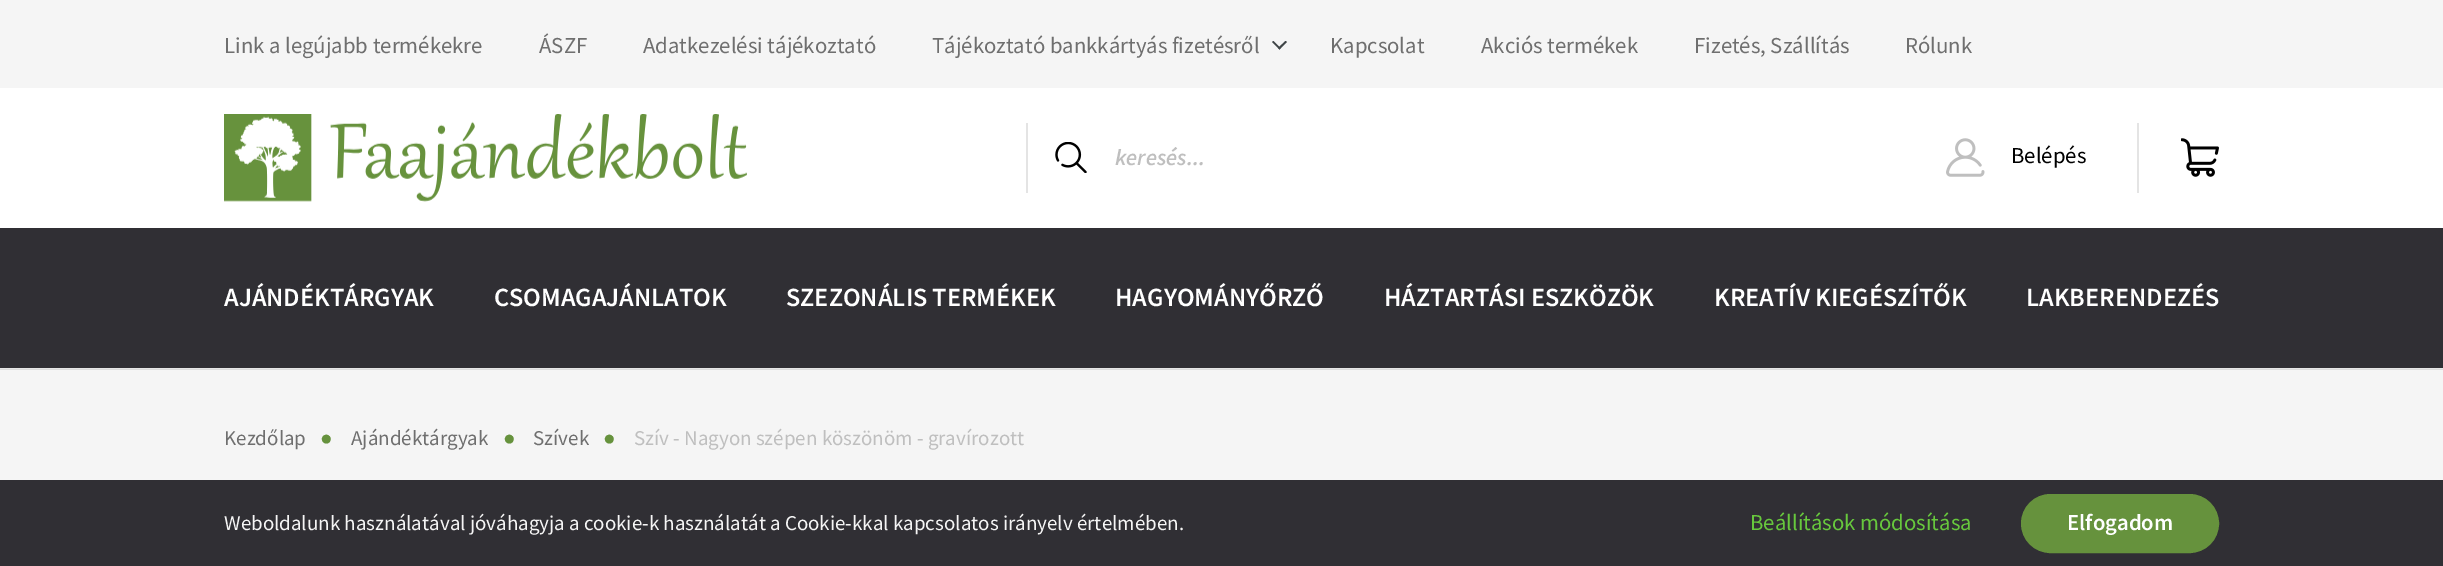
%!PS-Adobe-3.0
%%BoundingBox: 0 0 2443 566
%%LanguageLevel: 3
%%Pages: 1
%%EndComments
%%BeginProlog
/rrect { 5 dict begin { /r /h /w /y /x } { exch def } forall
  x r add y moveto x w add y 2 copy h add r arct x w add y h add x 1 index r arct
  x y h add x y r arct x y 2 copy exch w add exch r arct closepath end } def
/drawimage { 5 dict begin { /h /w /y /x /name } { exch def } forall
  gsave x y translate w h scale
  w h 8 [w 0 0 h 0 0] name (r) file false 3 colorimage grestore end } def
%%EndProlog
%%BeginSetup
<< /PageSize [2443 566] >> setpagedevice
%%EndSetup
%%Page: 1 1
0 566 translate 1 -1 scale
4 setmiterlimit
1 setgray
0 0 2443 566 rectfill
0.902 setgray
0 368 2443 1 rectfill
0.961 setgray
0 0 2443 88 rectfill
0.247 0.271 0.278 setrgbcolor
newpath 1285.5 41 moveto 1287 42 lineto 1279.5 49.5 lineto 1278 48 lineto closepath fill
newpath 1273.5 41 moveto 1280.5 48 lineto 1279.5 49.5 lineto 1272 42 lineto closepath fill
(images/1.raw) 224 114 523 88 drawimage
(images/2.raw) 1055 142 32 31 drawimage
0.894 setgray
1026 123 2 70 rectfill
(images/3.raw) 1946 138 39 39 drawimage
2137 123 2 70 rectfill
(images/4.raw) 2181 138 38 39 drawimage
0.188 0.184 0.204 setrgbcolor
0 228 2443 140 rectfill
0.961 setgray
0 370 2443 110 rectfill
0.867 setgray
0 369 2443 1 rectfill
0.188 0.184 0.204 setrgbcolor
0 480 2443 86 rectfill
0.4 0.573 0.239 setrgbcolor
2022 495 196 57 28.5 rrect gsave fill grestore
2 setlinewidth
stroke
/SourceSansPro-Regular [22.75 0 0 -22.75 0 0] selectfont
0.435 setgray
224 53 moveto (Link a legújabb termékekre) show
539 53 moveto (ÁSZF) show
643 53 moveto (Adatkezelési tájékoztató) show
932 53 moveto (Tájékoztató bankkártyás fizetésről) show
1330 53 moveto (Kapcsolat) show
1481 53 moveto (Akciós termékek) show
1694 53 moveto (Fizetés, Szállítás) show
1905 53 moveto (Rólunk) show
/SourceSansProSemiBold-SemiBoldItalic [22.75 0 0 -22.75 0 0] selectfont
0.749 setgray
1115 165 moveto (keresés...) show
/SourceSansPro-Regular [22.75 0 0 -22.75 0 0] selectfont
0 setgray
2011 163 moveto (Belépés) show
/SourceSansProSemiBold-SemiBold [26.25 0 0 -26.25 0 0] selectfont
1 setgray
224 306 moveto (AJÁNDÉKTÁRGYAK) show
494 306 moveto (CSOMAGAJÁNLATOK) show
786 306 moveto (SZEZONÁLIS TERMÉKEK) show
1115 306 moveto (HAGYOMÁNYŐRZŐ) show
1384 306 moveto (HÁZTARTÁSI ESZKÖZÖK) show
1714 306 moveto (KREATÍV KIEGÉSZÍTŐK) show
2026 306 moveto (LAKBERENDEZÉS) show
/SourceSansPro-Regular [21 0 0 -21 0 0] selectfont
0.435 setgray
224 445 moveto (Kezdőlap) show
/LiberationSans-Regular [21 0 0 -21 0 0] selectfont
0.4 0.573 0.239 setrgbcolor
320 445 moveto (●) show
/SourceSansPro-Regular [21 0 0 -21 0 0] selectfont
0.435 setgray
351 445 moveto (Ajándéktárgyak) show
/LiberationSans-Regular [21 0 0 -21 0 0] selectfont
0.4 0.573 0.239 setrgbcolor
503 445 moveto (●) show
/SourceSansPro-Regular [21 0 0 -21 0 0] selectfont
0.435 setgray
533 445 moveto (Szívek) show
/LiberationSans-Regular [21 0 0 -21 0 0] selectfont
0.4 0.573 0.239 setrgbcolor
603 445 moveto (●) show
/SourceSansPro-Regular [21 0 0 -21 0 0] selectfont
0.749 setgray
634 445 moveto (Szív - Nagyon szépen köszönöm - gravírozott) show
0.961 setgray
224 530 moveto (Weboldalunk használatával jóváhagyja a cookie-k használatát a Cookie-kkal kapcsolatos irányelv értelmében.) show
/SourceSansPro-Regular [22.75 0 0 -22.75 0 0] selectfont
0.404 0.784 0.239 setrgbcolor
1750 530 moveto (Beállítások módosítása) show
/SourceSansProSemiBold-SemiBold [22.75 0 0 -22.75 0 0] selectfont
1 setgray
2067 530 moveto (Elfogadom) show
showpage
%%EOF
